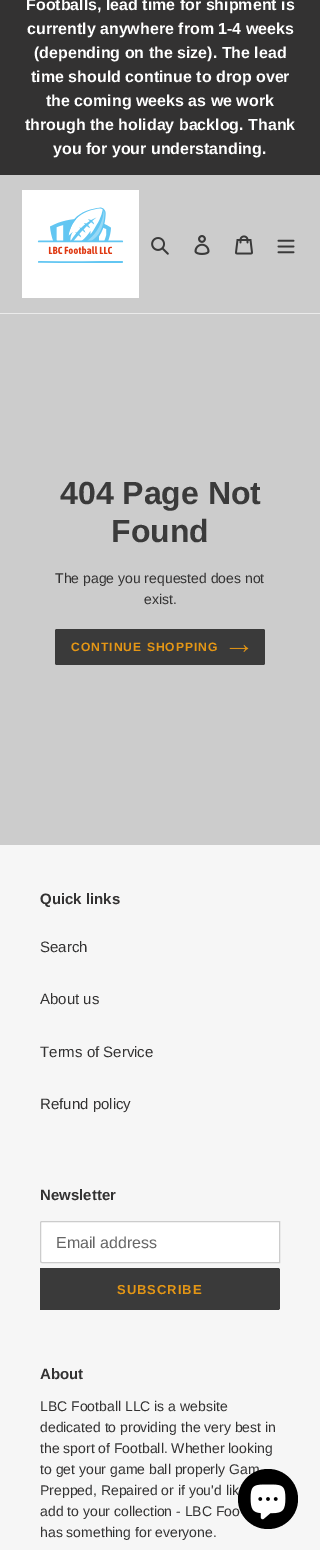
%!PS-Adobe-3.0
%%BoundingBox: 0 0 320 1550
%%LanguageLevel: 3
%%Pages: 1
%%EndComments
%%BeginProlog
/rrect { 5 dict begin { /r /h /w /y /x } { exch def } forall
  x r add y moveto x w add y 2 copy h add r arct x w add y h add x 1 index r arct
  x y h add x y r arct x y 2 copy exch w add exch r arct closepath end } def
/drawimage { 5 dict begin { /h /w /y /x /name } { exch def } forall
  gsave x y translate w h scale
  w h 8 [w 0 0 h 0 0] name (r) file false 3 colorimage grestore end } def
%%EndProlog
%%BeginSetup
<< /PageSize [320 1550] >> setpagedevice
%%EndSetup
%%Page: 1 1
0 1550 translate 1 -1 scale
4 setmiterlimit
0.8 setgray
0 0 320 1550 rectfill
0.2 0.196 0.196 setrgbcolor
0 0 320 175 rectfill
0.922 setgray
0 313 320 1 rectfill
(images/1.raw) 22 190 117 108 drawimage
(images/2.raw) 151 237 18 18 drawimage
(images/3.raw) 194 235 16 20 drawimage
(images/4.raw) 235 235 18 20 drawimage
(images/5.raw) 277 239 18 15 drawimage
0.227 setgray
55 629 210 36 2 rrect fill
(images/6.raw) 229 644 20 8 drawimage
0.965 setgray
0 845 320 705 rectfill
1 setgray
newpath 42 1221.5 moveto 279.5 1221.5 lineto 279.5 1262.5 lineto 42 1262.5 lineto 41 1262.5 40.5 1262 40.5 1261 curveto 40.5 1223 lineto 40.5 1222 41 1221.5 42 1221.5 curveto closepath gsave fill grestore
0.8 setgray
stroke
0.227 setgray
newpath 40 1268 moveto 278 1268 lineto 279 1268 280 1269 280 1270 curveto 280 1308 lineto 280 1309 279 1310 278 1310 curveto 40 1310 lineto closepath fill
/LiberationSans-Bold [16 0 0 -16 0 0] selectfont
1 setgray
26 10 moveto (Footballs, lead time for shipment is) show
27 34 moveto (currently anywhere from 1-4 weeks) show
34 58 moveto (\(depending on the size\). The lead) show
31 82 moveto (time should continue to drop over) show
46 106 moveto (the coming weeks as we work) show
25 130 moveto (through the holiday backlog. Thank) show
53 154 moveto (you for your understanding.) show
/LiberationSans-Bold [32 0 0 -32 0 0] selectfont
0.227 setgray
60 504 moveto (404 Page Not) show
111 542 moveto (Found) show
/LiberationSans-Regular [14 0 0 -14 0 0] selectfont
0.2 0.196 0.196 setrgbcolor
55 583 moveto (The page you requested does not) show
144 604 moveto (exist.) show
/LiberationSans-Bold [12.1 0 0 -12.1 0 0] selectfont
0.894 0.588 0.082 setrgbcolor
71 651 moveto 1 0 (CONTINUE SHOPPING) ashow
/LiberationSans-Bold [15 0 0 -15 0 0] selectfont
0.2 0.196 0.196 setrgbcolor
40 904 moveto (Quick links) show
/LiberationSans-Regular [15 0 0 -15 0 0] selectfont
40 952 moveto (Search) show
40 1004 moveto (About us) show
40 1057 moveto (Terms of Service) show
40 1109 moveto (Refund policy) show
/LiberationSans-Bold [15 0 0 -15 0 0] selectfont
40 1200 moveto (Newsletter) show
/LiberationSans-Regular [16 0 0 -16 0 0] selectfont
0.4 setgray
56 1248 moveto (Email address) show
/LiberationSans-Bold [13 0 0 -13 0 0] selectfont
0.894 0.588 0.082 setrgbcolor
117 1294 moveto 1 0 (SUBSCRIBE) ashow
/LiberationSans-Bold [15 0 0 -15 0 0] selectfont
0.2 0.196 0.196 setrgbcolor
40 1379 moveto (About) show
/LiberationSans-Regular [14 0 0 -14 0 0] selectfont
40 1411 moveto (LBC Football LLC is a website) show
40 1432 moveto (dedicated to providing the very best in) show
40 1453 moveto (the sport of Football. Whether looking) show
40 1474 moveto (to get your game ball properly Gam) show
40 1495 moveto (Prepped, Repaired or if you'd lik) show
40 1516 moveto (add to your collection - LBC Foo) show
40 1537 moveto (has something for everyone.) show
0 setgray
newpath 268 1499 30 0 360 arc closepath fill
(images/7.raw) 250 1484 36 36 drawimage
showpage
%%EOF
